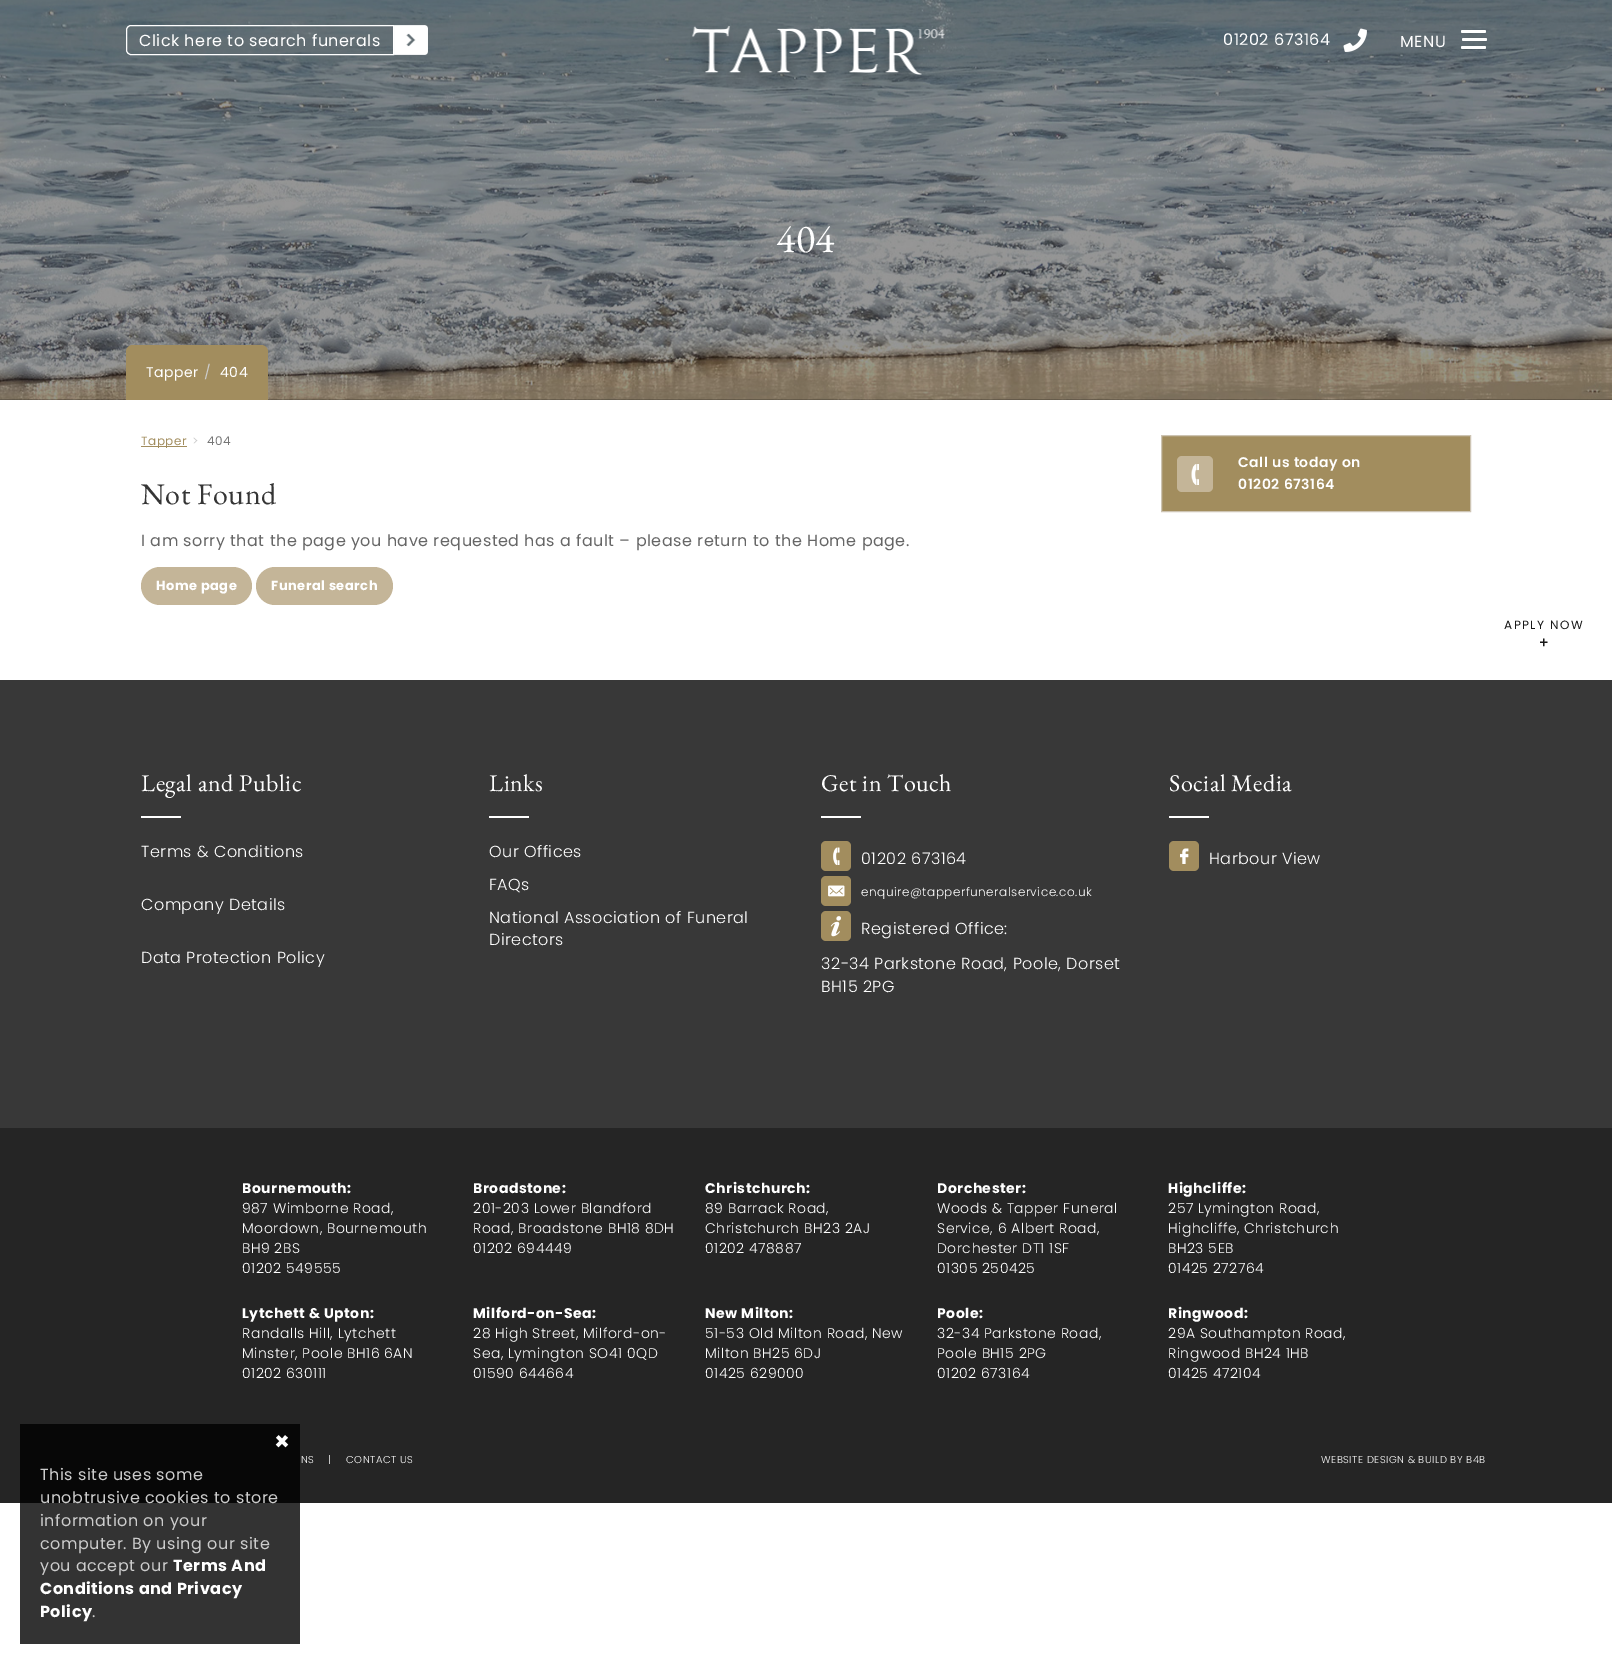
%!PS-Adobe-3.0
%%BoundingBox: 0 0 1612 1664
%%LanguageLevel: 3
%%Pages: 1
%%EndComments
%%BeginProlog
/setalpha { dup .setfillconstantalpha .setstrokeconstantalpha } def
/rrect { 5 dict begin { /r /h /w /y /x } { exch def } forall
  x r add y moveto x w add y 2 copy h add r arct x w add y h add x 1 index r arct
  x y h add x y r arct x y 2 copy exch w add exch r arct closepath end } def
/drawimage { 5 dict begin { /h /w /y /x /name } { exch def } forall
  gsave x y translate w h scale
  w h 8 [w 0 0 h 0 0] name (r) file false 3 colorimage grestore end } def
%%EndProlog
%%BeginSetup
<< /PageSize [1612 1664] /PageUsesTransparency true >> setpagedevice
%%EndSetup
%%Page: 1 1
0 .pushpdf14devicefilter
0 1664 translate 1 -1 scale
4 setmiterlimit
1 setgray
0 0 1612 1664 rectfill
(images/4.raw) 0 0 1612 400 drawimage
newpath 131 25.5 moveto 393.5 25.5 lineto 393.5 54.5 lineto 131 54.5 lineto 128.5 54.5 126.5 52.5 126.5 50 curveto 126.5 30 lineto 126.5 27.5 128.5 25.5 131 25.5 curveto closepath stroke
(images/1.raw) 394 25 34 30 drawimage
(images/2.raw) 690 26 255 63 drawimage
(images/3.raw) 1343 28 24 24 drawimage
1461 30 25 3 1.5 rrect fill
1462 38 25 3 1.5 rrect fill
1461 46 25 3 1.5 rrect fill
0.635 0.553 0.369 setrgbcolor
newpath 133 345 moveto 261 345 lineto 265 345 268 348 268 352 curveto 268 400 lineto 126 400 lineto 126 352 lineto 126 348 129 345 133 345 curveto closepath fill
141 446 46 1 rectfill
0.769 0.71 0.596 setrgbcolor
141 567 111 38 19 rrect fill
256 567 137 38 19 rrect fill
0.635 0.553 0.369 setrgbcolor
newpath 1161.5 435.5 moveto 1470.5 435.5 lineto 1470.5 511.5 lineto 1161.5 511.5 lineto closepath gsave fill grestore
0.804 0.769 0.702 setrgbcolor
stroke
0.769 0.71 0.596 setrgbcolor
1177 456 36 36 5 rrect fill
(images/5.raw) 1191 464 8 21 drawimage
0.22 setgray
0 680 1612 448 rectfill
1 setgray
141 816 40 2 rectfill
489 816 40 2 rectfill
821 816 40 2 rectfill
0.635 0.553 0.369 setrgbcolor
821 841 30 30 5 rrect fill
(images/6.raw) 833 847 7 18 drawimage
821 876 30 30 5 rrect fill
(images/7.raw) 828 885 17 12 drawimage
821 911 30 30 5 rrect fill
(images/8.raw) 830 916 11 21 drawimage
1 setgray
1169 816 40 2 rectfill
0.635 0.553 0.369 setrgbcolor
1169 841 30 30 5 rrect fill
(images/9.raw) 1180 848 9 16 drawimage
0.145 setgray
0 1128 1612 375 rectfill
0.8 setalpha
0 setgray
20 1424 280 220 rectfill
/Poppins-Regular [16 0 0 -16 0 0] selectfont
1 setalpha
1 setgray
139 46 moveto 0.5 0 (Click here to search funerals) ashow
1223 45 moveto 0.5 0 (01202 673164) ashow
1400 47 moveto 0.5 0 (MENU) ashow
/EBGaramond-Regular [40 0 0 -40 0 0] selectfont
776 252 moveto 0.5 0 (404) ashow
/Poppins-Regular [14 0 0 -14 0 0] selectfont
146 377 moveto 0.5 0 (Tapper) ashow
0.8 setgray
204 377 moveto 0.5 0 (/) ashow
1 setgray
220 377 moveto 0.5 0 (404) ashow
/Poppins-Regular [12 0 0 -12 0 0] selectfont
0.635 0.553 0.369 setrgbcolor
141 445 moveto 0.5 0 (Tapper) ashow
0.8 setgray
192 445 moveto 0.5 0 (>) ashow
0.467 setgray
207 445 moveto 0.5 0 (404) ashow
/EBGaramond-Regular [30 0 0 -30 0 0] selectfont
0.208 setgray
141 504 moveto 0.5 0 (Not Found) ashow
/Poppins-Regular [16 0 0 -16 0 0] selectfont
0.4 setgray
141 546 moveto 0.5 0 (I am sorry that the page you have requested has a fault – please return to the Home page.) ashow
/Poppins-Bold [13 0 0 -13 0 0] selectfont
1 setgray
156 590 moveto 0.5 0 (Home page) ashow
271 590 moveto 0.5 0 (Funeral search) ashow
/Poppins-SemiBold [14 0 0 -14 0 0] selectfont
1238 467 moveto 0.5 0 (Call us today on) ashow
1238 489 moveto 0.5 0 (01202 673164) ashow
/Poppins-Regular [12 0 0 -12 0 0] selectfont
0.094 setgray
1504 629 moveto 1.5 0 (APPLY NOW) ashow
/NotoSans-Regular [28 0 0 -28 0 0] selectfont
1539 659 moveto 1.5 0 (⁺) ashow
/EBGaramond-Regular [24 0 0 -24 0 0] selectfont
1 setgray
141 791 moveto 0.5 0 (Legal and Public) ashow
/Poppins-Light [16 0 0 -16 0 0] selectfont
141 857 moveto 0.5 0 (Terms & Conditions) ashow
141 910 moveto 0.5 0 (Company Details) ashow
141 963 moveto 0.5 0 (Data Protection Policy) ashow
/EBGaramond-Regular [24 0 0 -24 0 0] selectfont
489 791 moveto 0.5 0 (Links) ashow
/Poppins-Light [16 0 0 -16 0 0] selectfont
489 857 moveto 0.5 0 (Our Offices) ashow
489 890 moveto 0.5 0 (FAQs) ashow
489 923 moveto 0.5 0 (National Association of Funeral) ashow
489 945 moveto 0.5 0 (Directors) ashow
/EBGaramond-Regular [24 0 0 -24 0 0] selectfont
821 791 moveto 0.5 0 (Get in Touch) ashow
/Poppins-Light [16 0 0 -16 0 0] selectfont
861 864 moveto 0.5 0 (01202 673164) ashow
/Poppins-Light [12 0 0 -12 0 0] selectfont
861 896 moveto 0.5 0 (enquire@tapperfuneralservice.co.uk) ashow
/Poppins-Light [16 0 0 -16 0 0] selectfont
861 934 moveto 0.5 0 (Registered Office:) ashow
821 969 moveto 0.5 0 (32-34 Parkstone Road, Poole, Dorset) ashow
821 992 moveto 0.5 0 (BH15 2PG) ashow
/EBGaramond-Regular [24 0 0 -24 0 0] selectfont
1169 791 moveto 0.5 0 (Social Media) ashow
/Poppins-Light [16 0 0 -16 0 0] selectfont
1209 864 moveto 0.5 0 (Harbour View) ashow
/Poppins-Bold [14 0 0 -14 0 0] selectfont
242 1193 moveto 0.5 0 (Bournemouth:) ashow
/Poppins-Light [14 0 0 -14 0 0] selectfont
242 1213 moveto 0.5 0 (987 Wimborne Road,) ashow
242 1233 moveto 0.5 0 (Moordown, Bournemouth) ashow
242 1253 moveto 0.5 0 (BH9 2BS) ashow
242 1273 moveto 0.5 0 (01202 549555) ashow
/Poppins-Bold [14 0 0 -14 0 0] selectfont
473 1193 moveto 0.5 0 (Broadstone:) ashow
/Poppins-Light [14 0 0 -14 0 0] selectfont
473 1213 moveto 0.5 0 (201-203 Lower Blandford) ashow
473 1233 moveto 0.5 0 (Road, Broadstone BH18 8DH) ashow
473 1253 moveto 0.5 0 (01202 694449) ashow
/Poppins-Bold [14 0 0 -14 0 0] selectfont
705 1193 moveto 0.5 0 (Christchurch:) ashow
/Poppins-Light [14 0 0 -14 0 0] selectfont
705 1213 moveto 0.5 0 (89 Barrack Road,) ashow
705 1233 moveto 0.5 0 (Christchurch BH23 2AJ) ashow
705 1253 moveto 0.5 0 (01202 478887) ashow
/Poppins-Bold [14 0 0 -14 0 0] selectfont
937 1193 moveto 0.5 0 (Dorchester:) ashow
/Poppins-Light [14 0 0 -14 0 0] selectfont
937 1213 moveto 0.5 0 (Woods & Tapper Funeral) ashow
937 1233 moveto 0.5 0 (Service, 6 Albert Road,) ashow
937 1253 moveto 0.5 0 (Dorchester DT1 1SF) ashow
937 1273 moveto 0.5 0 (01305 250425) ashow
/Poppins-Bold [14 0 0 -14 0 0] selectfont
1168 1193 moveto 0.5 0 (Highcliffe:) ashow
/Poppins-Light [14 0 0 -14 0 0] selectfont
1168 1213 moveto 0.5 0 (257 Lymington Road,) ashow
1168 1233 moveto 0.5 0 (Highcliffe, Christchurch) ashow
1168 1253 moveto 0.5 0 (BH23 5EB) ashow
1168 1273 moveto 0.5 0 (01425 272764) ashow
/Poppins-Bold [14 0 0 -14 0 0] selectfont
242 1318 moveto 0.5 0 (Lytchett & Upton:) ashow
/Poppins-Light [14 0 0 -14 0 0] selectfont
242 1338 moveto 0.5 0 (Randalls Hill, Lytchett) ashow
242 1358 moveto 0.5 0 (Minster, Poole BH16 6AN) ashow
242 1378 moveto 0.5 0 (01202 630111) ashow
/Poppins-Bold [14 0 0 -14 0 0] selectfont
473 1318 moveto 0.5 0 (Milford-on-Sea:) ashow
/Poppins-Light [14 0 0 -14 0 0] selectfont
473 1338 moveto 0.5 0 (28 High Street, Milford-on-) ashow
473 1358 moveto 0.5 0 (Sea, Lymington SO41 0QD) ashow
473 1378 moveto 0.5 0 (01590 644664) ashow
/Poppins-Bold [14 0 0 -14 0 0] selectfont
705 1318 moveto 0.5 0 (New Milton:) ashow
/Poppins-Light [14 0 0 -14 0 0] selectfont
705 1338 moveto 0.5 0 (51-53 Old Milton Road, New) ashow
705 1358 moveto 0.5 0 (Milton BH25 6DJ) ashow
705 1378 moveto 0.5 0 (01425 629000) ashow
/Poppins-Bold [14 0 0 -14 0 0] selectfont
937 1318 moveto 0.5 0 (Poole:) ashow
/Poppins-Light [14 0 0 -14 0 0] selectfont
937 1338 moveto 0.5 0 (32-34 Parkstone Road,) ashow
937 1358 moveto 0.5 0 (Poole BH15 2PG) ashow
937 1378 moveto 0.5 0 (01202 673164) ashow
/Poppins-Bold [14 0 0 -14 0 0] selectfont
1168 1318 moveto 0.5 0 (Ringwood:) ashow
/Poppins-Light [14 0 0 -14 0 0] selectfont
1168 1338 moveto 0.5 0 (29A Southampton Road,) ashow
1168 1358 moveto 0.5 0 (Ringwood BH24 1HB) ashow
1168 1378 moveto 0.5 0 (01425 472104) ashow
/Poppins-Light [10 0 0 -10 0 0] selectfont
301 1463 moveto 0.5 0 (NS) ashow
328 1463 moveto 0.5 0 (|) ashow
346 1463 moveto 0.5 0 (CONTACT US) ashow
1321 1463 moveto 0.5 0 (WEBSITE DESIGN & BUILD BY B4B) ashow
/Poppins-Bold [25 0 0 -25 0 0] selectfont
274 1450 moveto 0.5 0 (×) ashow
/Poppins-Regular [16 0 0 -16 0 0] selectfont
0.8 setgray
40 1480 moveto 0.5 0 (This site uses some) ashow
40 1503 moveto 0.5 0 (unobtrusive cookies to store) ashow
40 1526 moveto 0.5 0 (information on your) ashow
40 1549 moveto 0.5 0 (computer. By using our site) ashow
40 1571 moveto 0.5 0 (you accept our) ashow
/Poppins-Bold [16 0 0 -16 0 0] selectfont
1 setgray
173 1571 moveto 0.5 0 (Terms And) ashow
40 1594 moveto 0.5 0 (Conditions and Privacy) ashow
40 1617 moveto 0.5 0 (Policy) ashow
/Poppins-Regular [16 0 0 -16 0 0] selectfont
0.8 setgray
92 1617 moveto 0.5 0 (.) ashow
.poppdf14devicefilter showpage
%%EOF
